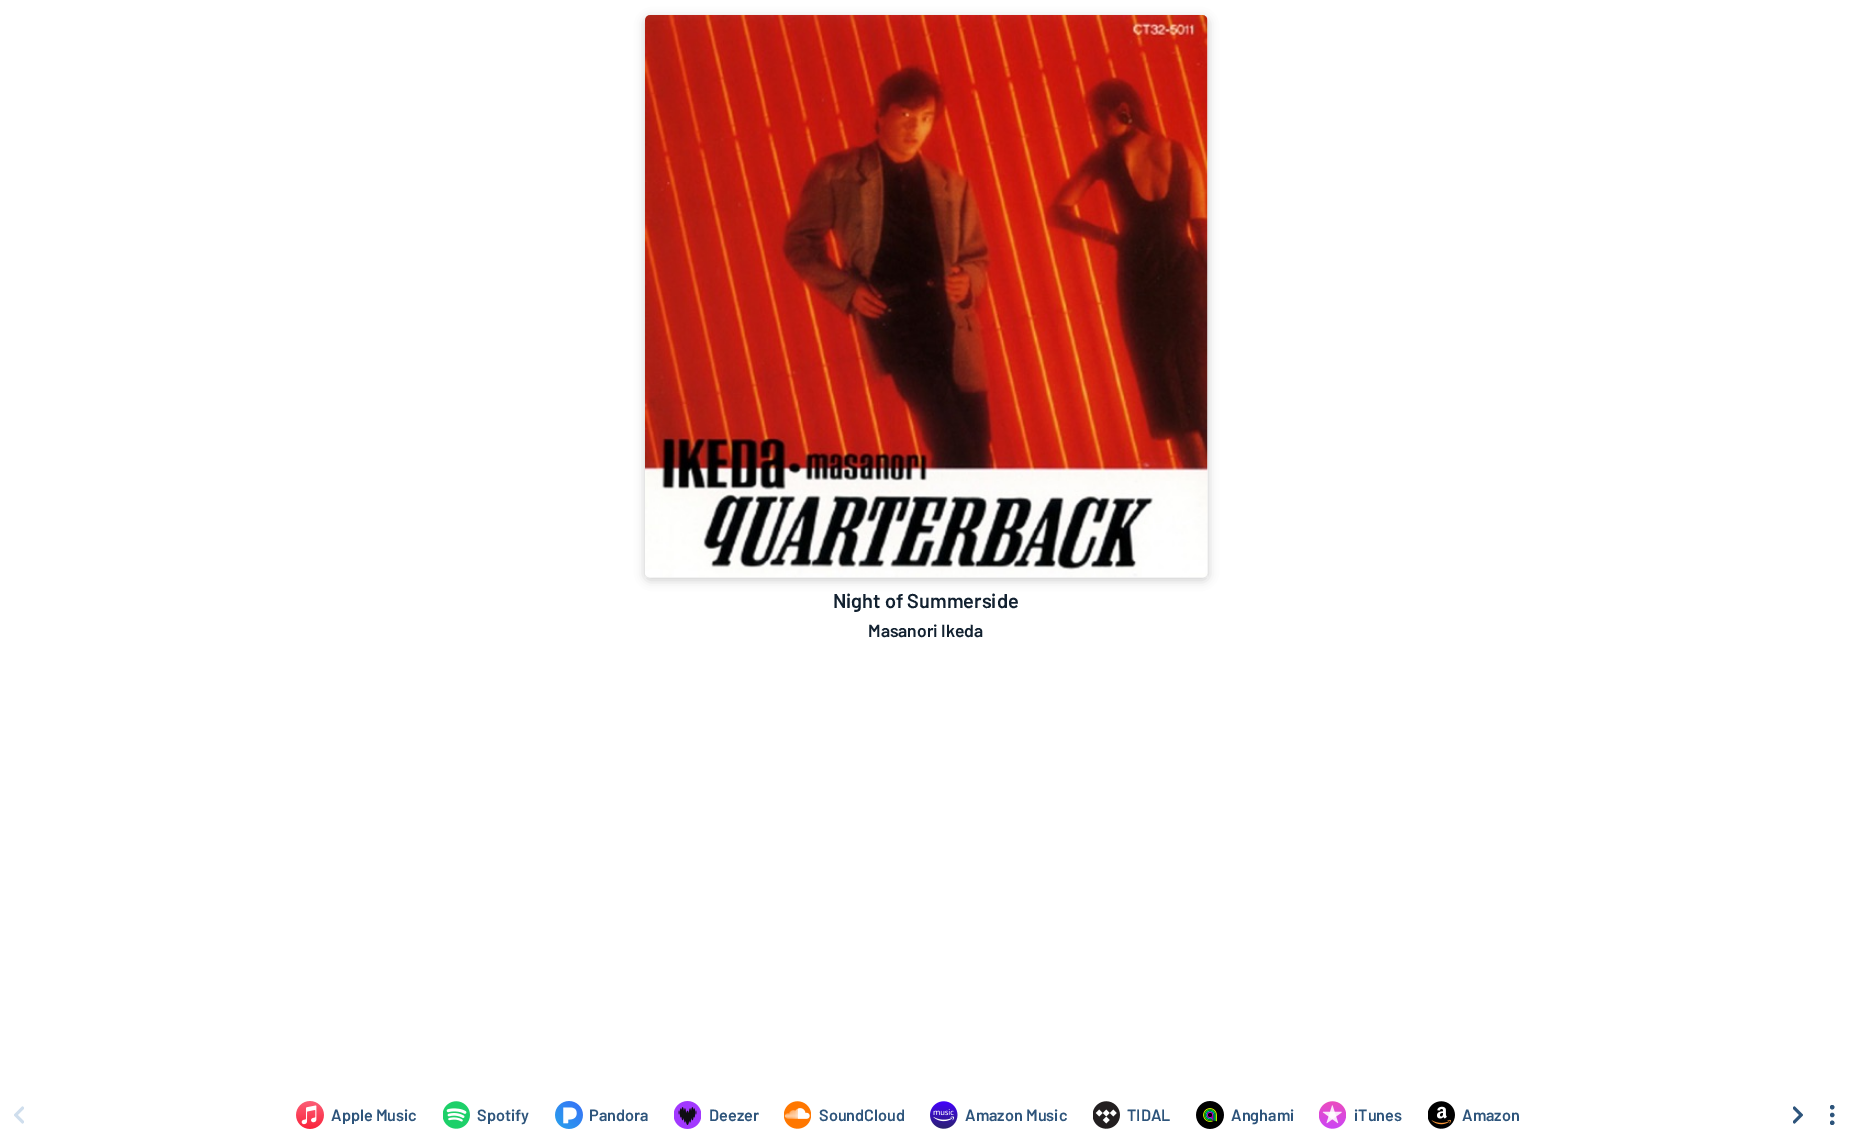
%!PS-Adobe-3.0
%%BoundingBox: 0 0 1851 1147
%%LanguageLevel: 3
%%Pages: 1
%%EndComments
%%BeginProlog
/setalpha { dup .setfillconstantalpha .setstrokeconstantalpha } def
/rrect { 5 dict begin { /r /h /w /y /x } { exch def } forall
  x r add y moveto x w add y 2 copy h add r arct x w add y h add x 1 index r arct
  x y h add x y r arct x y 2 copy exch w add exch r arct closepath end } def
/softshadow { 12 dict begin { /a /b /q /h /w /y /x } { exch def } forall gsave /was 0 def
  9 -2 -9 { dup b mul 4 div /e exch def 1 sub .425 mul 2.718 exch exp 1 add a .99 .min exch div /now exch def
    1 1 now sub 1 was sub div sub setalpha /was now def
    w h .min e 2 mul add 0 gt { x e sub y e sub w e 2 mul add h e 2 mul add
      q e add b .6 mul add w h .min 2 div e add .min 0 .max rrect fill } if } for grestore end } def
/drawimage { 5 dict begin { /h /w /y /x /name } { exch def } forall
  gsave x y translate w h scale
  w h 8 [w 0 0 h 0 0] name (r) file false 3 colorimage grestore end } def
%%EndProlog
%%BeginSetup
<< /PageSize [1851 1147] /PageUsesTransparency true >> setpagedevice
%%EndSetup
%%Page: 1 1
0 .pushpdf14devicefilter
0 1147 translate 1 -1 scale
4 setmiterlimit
1 setgray
0 0 1851 1147 rectfill
0 setgray
645 18 563 562 5 5 0.2 softshadow
(images/1.raw) 645 15 563 563 drawimage
(images/2.raw) 14 1106 10 18 drawimage
(images/3.raw) 296 1101 28 28 drawimage
(images/4.raw) 443 1101 27 28 drawimage
(images/5.raw) 555 1101 28 28 drawimage
(images/6.raw) 674 1101 27 28 drawimage
(images/7.raw) 784 1101 27 28 drawimage
(images/8.raw) 930 1101 28 28 drawimage
(images/9.raw) 1093 1101 27 28 drawimage
(images/10.raw) 1196 1101 28 28 drawimage
(images/11.raw) 1319 1101 27 28 drawimage
(images/12.raw) 1428 1101 27 28 drawimage
(images/13.raw) 1793 1106 10 18 drawimage
0.176 0.329 0.482 setrgbcolor
newpath 1832.2 1122.8 2.2 0 360 arc closepath fill
newpath 1832.2 1115 2.2 0 360 arc closepath fill
newpath 1832.2 1107.2 2.2 0 360 arc closepath fill
/Barlow-SemiBold [20 0 0 -20 0 0] selectfont
0.071 0.129 0.188 setrgbcolor
833 608 moveto (Night of Summerside) show
/Barlow-SemiBold [17.5 0 0 -17.5 0 0] selectfont
868 637 moveto (Masanori Ikeda) show
/Barlow-SemiBold [16.25 0 0 -16.25 0 0] selectfont
0.176 0.329 0.482 setrgbcolor
331 1121 moveto (Apple Music) show
477 1121 moveto (Spotify) show
589 1121 moveto (Pandora) show
709 1121 moveto (Deezer) show
819 1121 moveto (SoundCloud) show
965 1121 moveto (Amazon Music) show
1127 1121 moveto (TIDAL) show
1231 1121 moveto (Anghami) show
1354 1121 moveto (iTunes) show
1462 1121 moveto (Amazon) show
.poppdf14devicefilter showpage
%%EOF
